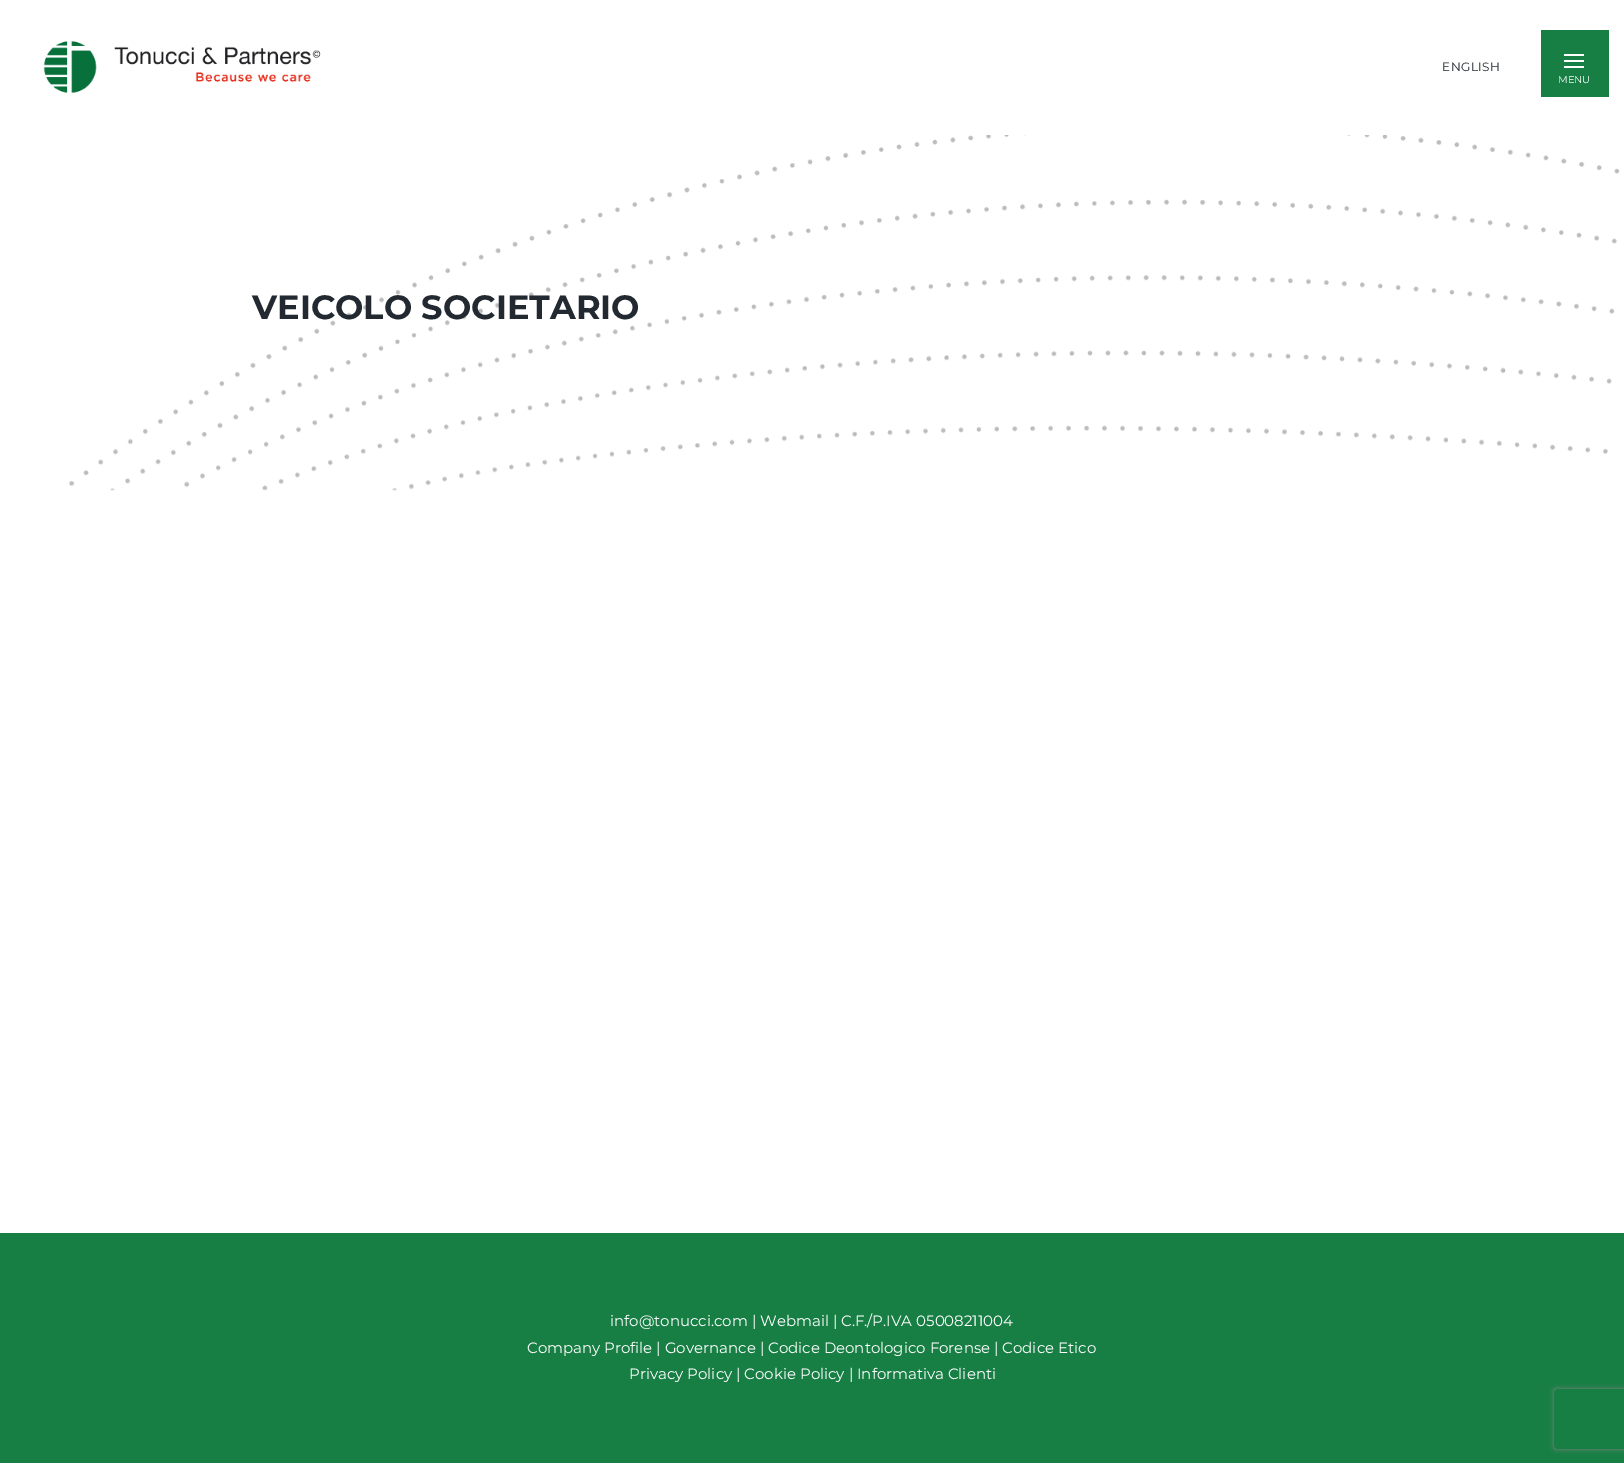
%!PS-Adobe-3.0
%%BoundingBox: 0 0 1624 1463
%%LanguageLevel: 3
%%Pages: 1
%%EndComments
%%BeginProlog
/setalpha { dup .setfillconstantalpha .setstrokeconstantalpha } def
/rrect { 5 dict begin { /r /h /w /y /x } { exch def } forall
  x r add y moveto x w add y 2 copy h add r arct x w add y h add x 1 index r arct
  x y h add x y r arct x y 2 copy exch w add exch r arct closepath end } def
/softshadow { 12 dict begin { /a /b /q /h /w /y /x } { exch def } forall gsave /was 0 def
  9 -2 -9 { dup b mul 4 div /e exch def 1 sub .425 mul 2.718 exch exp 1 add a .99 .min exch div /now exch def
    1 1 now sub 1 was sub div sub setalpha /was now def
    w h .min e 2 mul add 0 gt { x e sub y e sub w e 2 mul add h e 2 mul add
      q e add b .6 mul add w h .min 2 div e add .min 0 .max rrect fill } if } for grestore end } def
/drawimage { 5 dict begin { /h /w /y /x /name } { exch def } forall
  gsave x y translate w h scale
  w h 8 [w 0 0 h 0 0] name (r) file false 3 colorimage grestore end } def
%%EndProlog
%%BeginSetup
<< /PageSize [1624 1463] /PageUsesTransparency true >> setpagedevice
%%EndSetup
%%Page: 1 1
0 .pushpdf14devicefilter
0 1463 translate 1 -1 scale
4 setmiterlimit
1 setgray
0 0 1624 1463 rectfill
(images/1.raw) 43 41 278 53 drawimage
(images/2.raw) 69 135 1551 356 drawimage
0.09 0.498 0.267 setrgbcolor
0 1233 1624 230 rectfill
1541 30 68 67 rectfill
1 setgray
1564 54 20 2 rectfill
1564 60 20 2 rectfill
1564 66 20 2 rectfill
gsave
newpath 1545 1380 moveto 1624 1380 lineto 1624 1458 lineto 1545 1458 lineto closepath 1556 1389 moveto 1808 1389 lineto 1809 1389 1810 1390 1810 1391 curveto 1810 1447 lineto 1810 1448 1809 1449 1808 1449 curveto 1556 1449 lineto 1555 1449 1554 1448 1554 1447 curveto 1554 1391 lineto 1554 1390 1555 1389 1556 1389 curveto closepath eoclip newpath
0.502 setgray
1554 1389 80 60 2 2.5 1 softshadow
grestore
/Montserrat-Regular [12 0 0 -12 0 0] selectfont
0.137 0.161 0.192 setrgbcolor
1442 71 moveto 0.5 0 (ENGLISH) ashow
/Montserrat-Bold [33.6 0 0 -33.6 0 0] selectfont
252 319 moveto (VEICOLO SOCIETARIO) show
/Montserrat-Regular [15 0 0 -15 0 0] selectfont
1 setgray
610 1326 moveto (info@tonucci.com | Webmail | C.F./P.IVA 05008211004) show
527 1353 moveto (Company Profile | Governance | Codice Deontologico Forense | Codice Etico) show
629 1379 moveto (Privacy Policy | Cookie Policy | Informativa Clienti) show
/Montserrat-Regular [10 0 0 -10 0 0] selectfont
1558 83 moveto (MENU) show
.poppdf14devicefilter showpage
%%EOF
